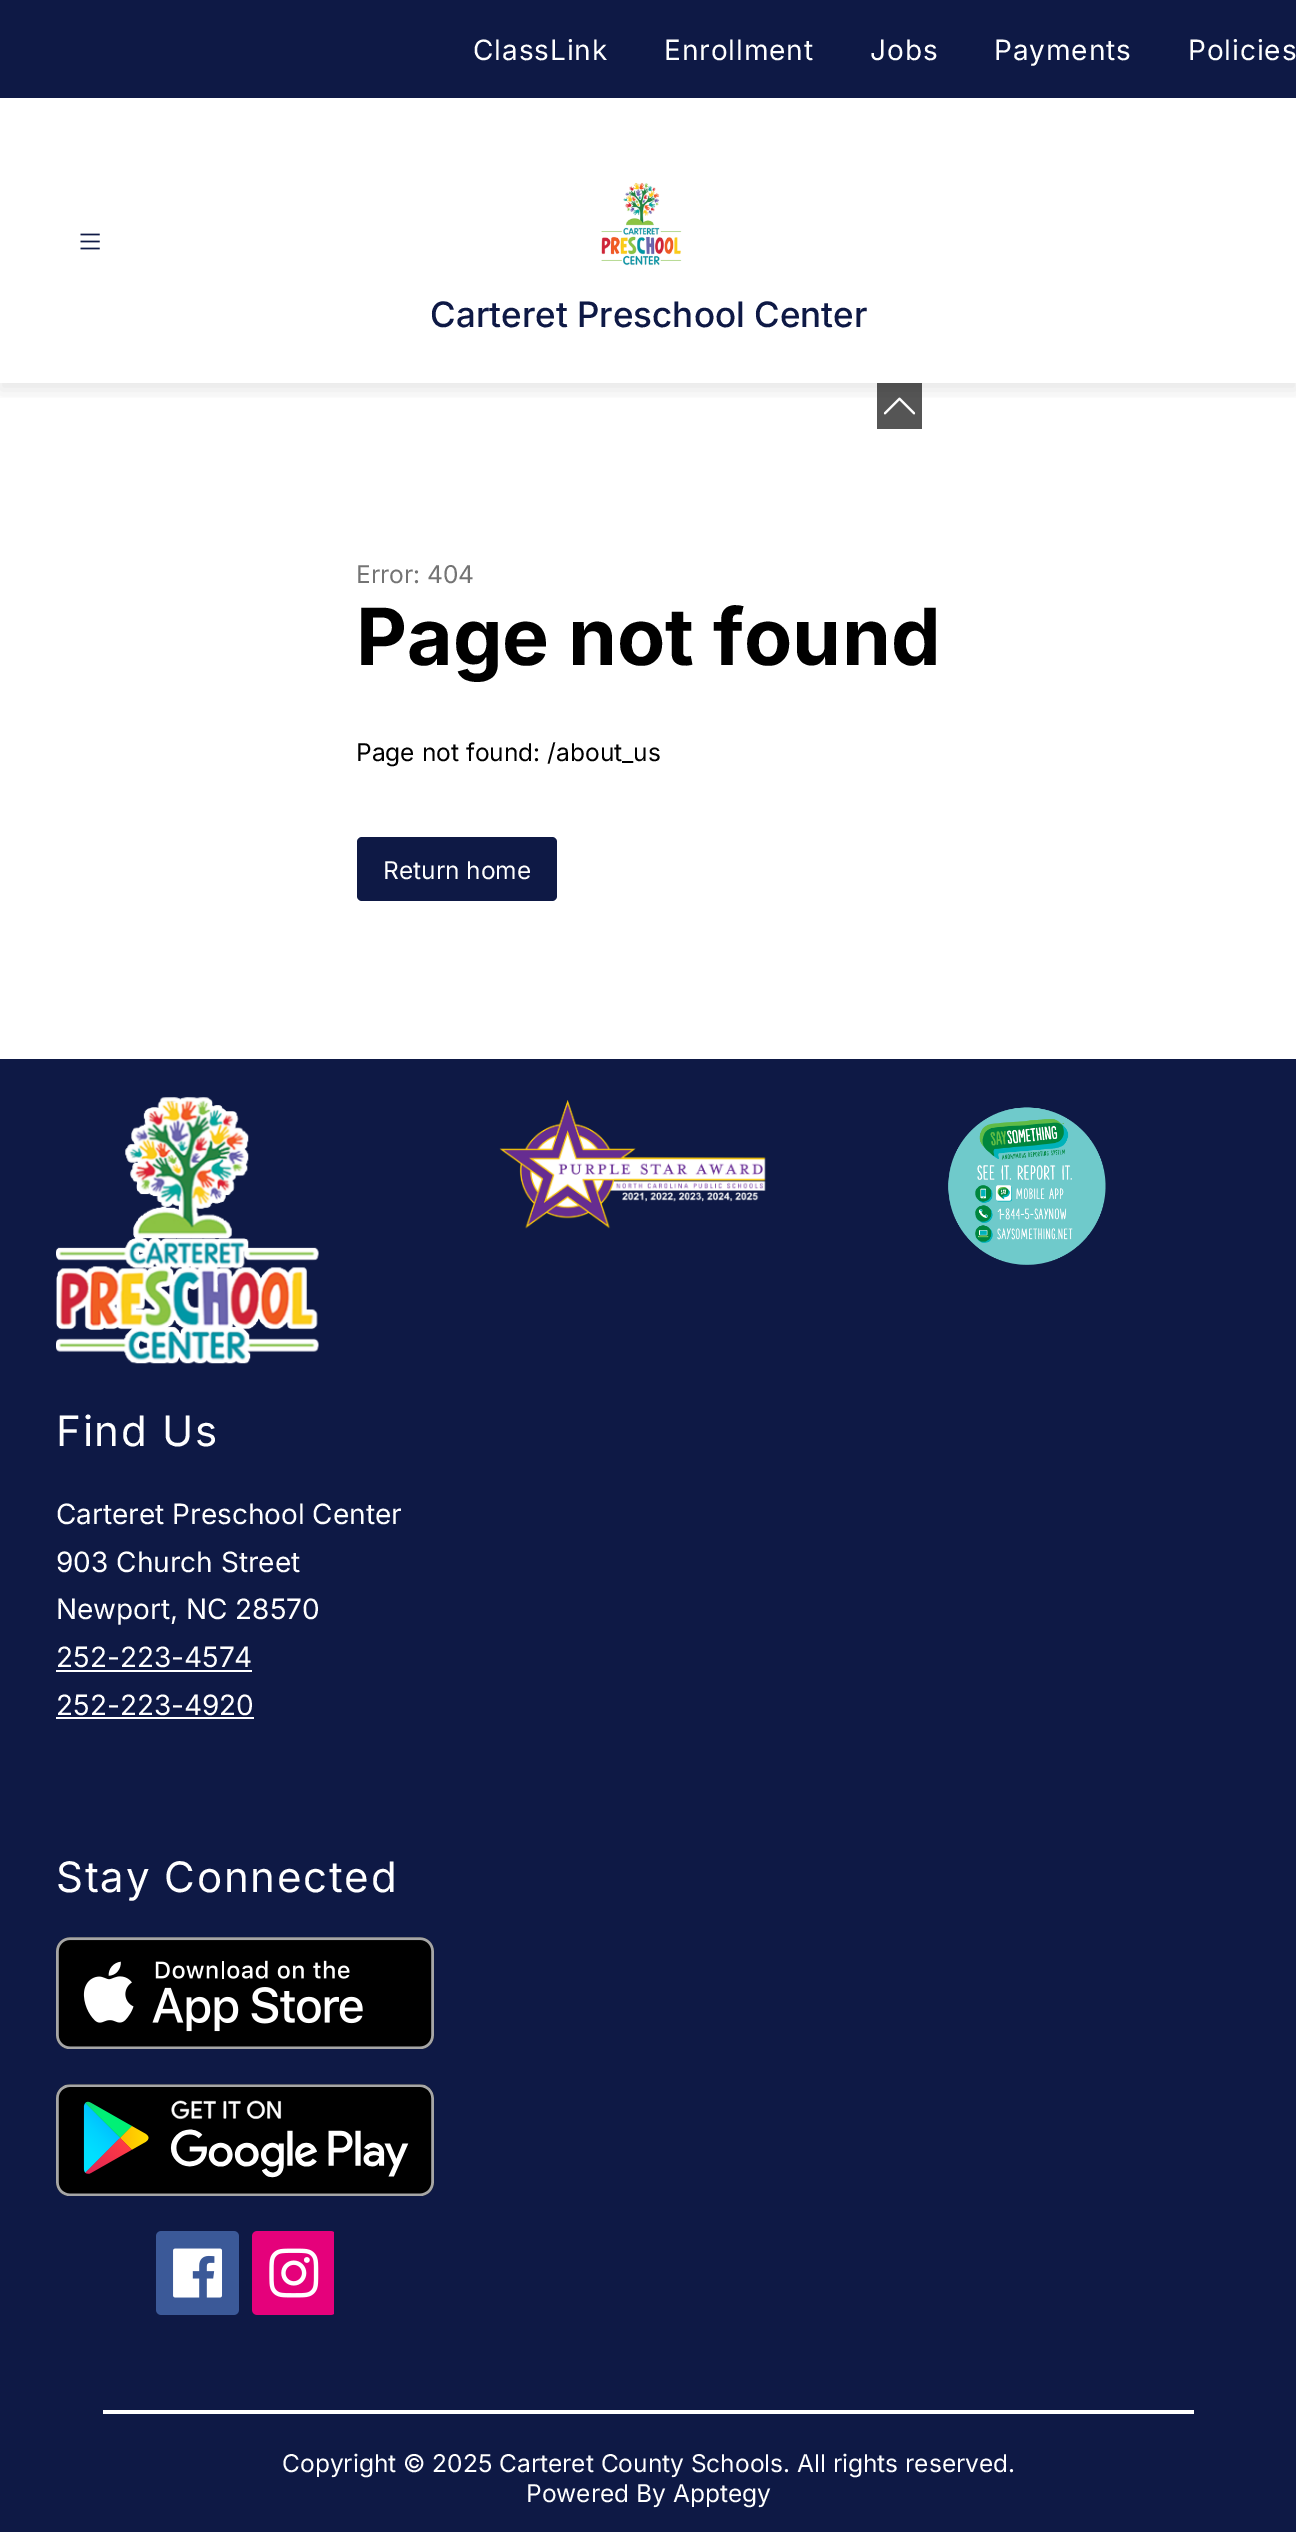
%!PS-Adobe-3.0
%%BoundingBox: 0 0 1296 2532
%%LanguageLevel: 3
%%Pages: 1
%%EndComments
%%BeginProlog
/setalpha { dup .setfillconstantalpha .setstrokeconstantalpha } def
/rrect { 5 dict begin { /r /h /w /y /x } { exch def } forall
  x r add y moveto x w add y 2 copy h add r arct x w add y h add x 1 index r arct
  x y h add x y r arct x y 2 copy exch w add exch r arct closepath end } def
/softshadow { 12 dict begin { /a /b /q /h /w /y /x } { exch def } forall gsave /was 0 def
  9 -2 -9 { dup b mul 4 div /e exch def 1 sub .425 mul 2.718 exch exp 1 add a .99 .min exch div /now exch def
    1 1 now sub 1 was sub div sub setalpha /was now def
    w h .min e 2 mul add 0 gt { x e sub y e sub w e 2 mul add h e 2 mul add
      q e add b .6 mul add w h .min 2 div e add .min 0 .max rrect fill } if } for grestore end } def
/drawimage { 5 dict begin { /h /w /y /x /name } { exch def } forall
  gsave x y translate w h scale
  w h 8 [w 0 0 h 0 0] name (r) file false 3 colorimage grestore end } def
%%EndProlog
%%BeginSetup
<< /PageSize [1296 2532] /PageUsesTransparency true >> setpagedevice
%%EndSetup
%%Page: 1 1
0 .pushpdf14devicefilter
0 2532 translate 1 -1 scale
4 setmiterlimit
1 setgray
0 0 1296 2532 rectfill
0.333 setgray
877 383 45 46 rectfill
(images/3.raw) 883 397 33 18 drawimage
gsave
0 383 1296 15 rectclip
0 setgray
0 7 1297 383 0 9 0.1 softshadow
grestore
0.055 0.098 0.271 setrgbcolor
0 0 1296 98 rectfill
(images/1.raw) 80 233 20 17 drawimage
(images/2.raw) 601 182 81 84 drawimage
357 837 200 64 5 rrect fill
0 1059 1296 1473 rectfill
(images/4.raw) 499 1100 267 129 drawimage
(images/5.raw) 948 1107 158 158 drawimage
(images/6.raw) 56 1097 263 267 drawimage
1 setgray
56 1670 196 2 rectfill
56 1717 198 2 rectfill
(images/7.raw) 56 1937 378 112 drawimage
(images/8.raw) 56 2084 378 112 drawimage
(images/9.raw) 156 2231 83 84 drawimage
(images/10.raw) 252 2231 82 84 drawimage
103 2410 1091 4 rectfill
/Inter-Regular [28 0 0 -28 0 0] selectfont
473 60 moveto 0.9 0 (ClassLink) ashow
664 60 moveto 0.9 0 (Enrollment) ashow
870 60 moveto 0.9 0 (Jobs) ashow
994 60 moveto 0.9 0 (Payments) ashow
1188 60 moveto 0.9 0 (Policies) ashow
/Inter-Medium [35 0 0 -35 0 0] selectfont
0.055 0.098 0.271 setrgbcolor
430 327 moveto (Carteret Preschool Center) show
/Inter-Regular [24.5 0 0 -24.5 0 0] selectfont
0.455 setgray
356 583 moveto (Error: 404) show
/Inter-Bold [78.75 0 0 -78.75 0 0] selectfont
0 setgray
356 665 moveto (Page not found) show
/Inter-Regular [24.5 0 0 -24.5 0 0] selectfont
356 761 moveto (Page not found: /about_us) show
1 setgray
383 879 moveto (Return home) show
/Inter-Regular [42 0 0 -42 0 0] selectfont
56 1446 moveto 1.75 0 (Find Us) ashow
/Inter-Regular [28 0 0 -28 0 0] selectfont
56 1524 moveto (Carteret Preschool Center) show
56 1572 moveto (903 Church Street) show
56 1619 moveto (Newport, NC 28570) show
56 1667 moveto (252-223-4574) show
56 1715 moveto (252-223-4920) show
/Inter-Regular [42 0 0 -42 0 0] selectfont
56 1892 moveto 1.75 0 (Stay Connected) ashow
/Inter-Regular [24.5 0 0 -24.5 0 0] selectfont
282 2472 moveto (Copyright © 2025 Carteret County Schools. All rights reserved.) show
526 2502 moveto (Powered By Apptegy) show
.poppdf14devicefilter showpage
%%EOF
